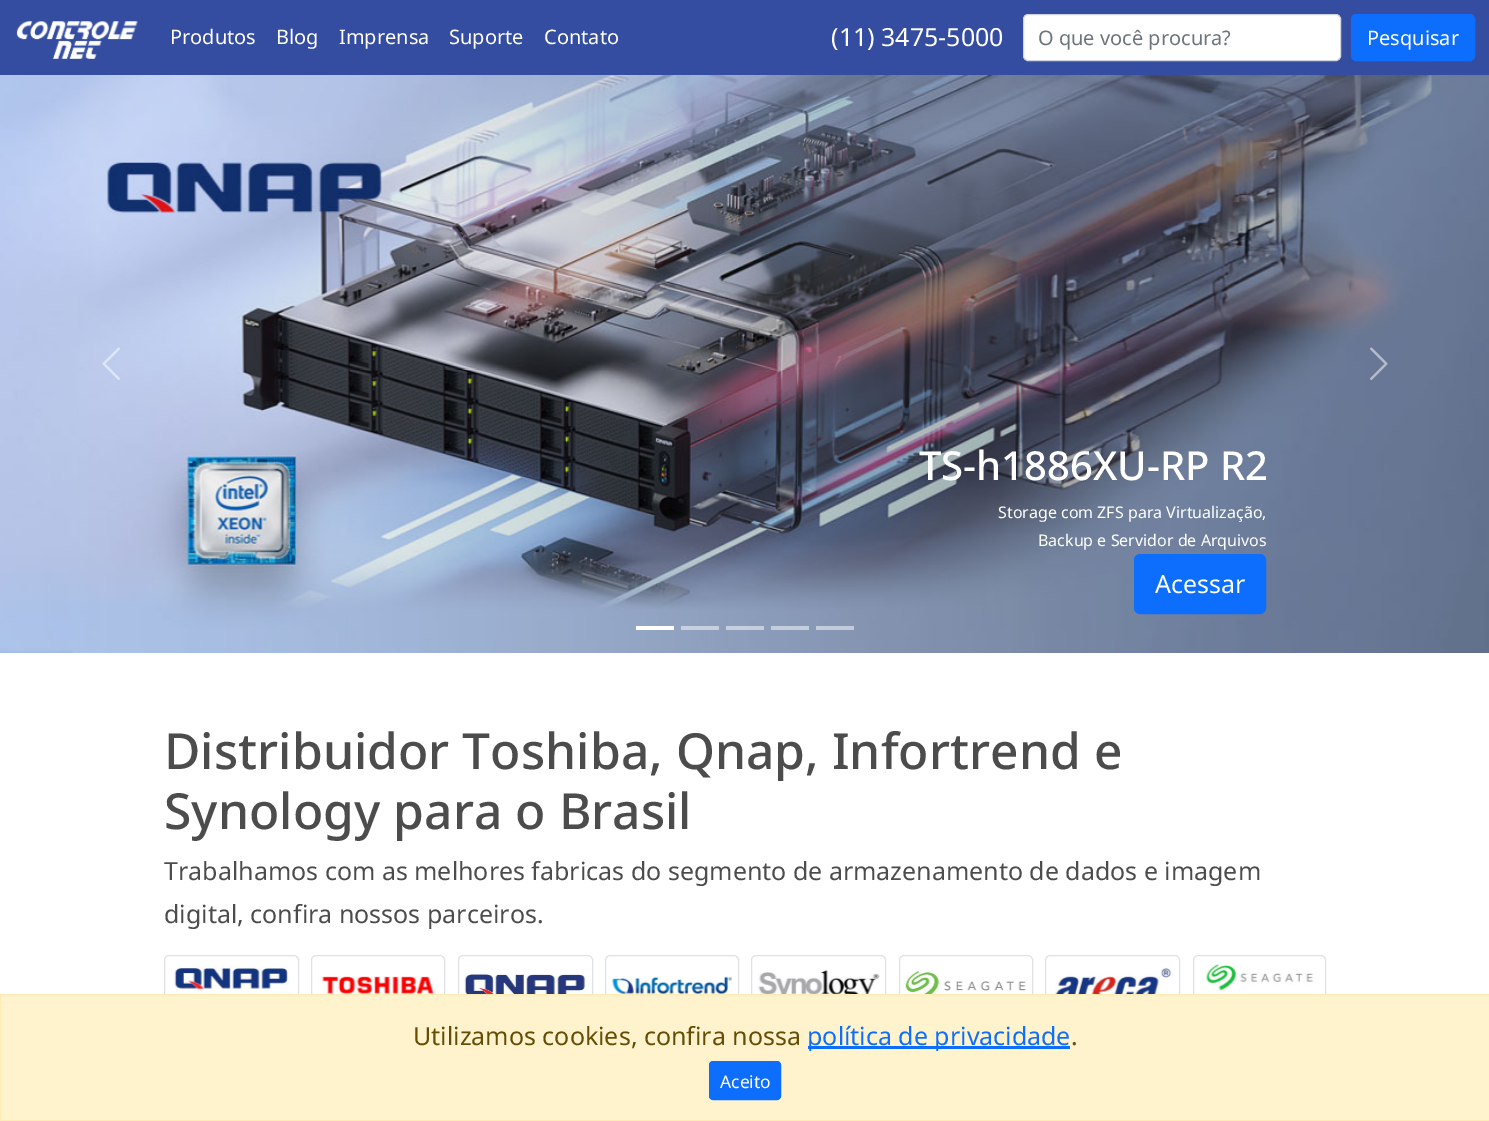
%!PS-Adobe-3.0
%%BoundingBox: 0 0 1489 1121
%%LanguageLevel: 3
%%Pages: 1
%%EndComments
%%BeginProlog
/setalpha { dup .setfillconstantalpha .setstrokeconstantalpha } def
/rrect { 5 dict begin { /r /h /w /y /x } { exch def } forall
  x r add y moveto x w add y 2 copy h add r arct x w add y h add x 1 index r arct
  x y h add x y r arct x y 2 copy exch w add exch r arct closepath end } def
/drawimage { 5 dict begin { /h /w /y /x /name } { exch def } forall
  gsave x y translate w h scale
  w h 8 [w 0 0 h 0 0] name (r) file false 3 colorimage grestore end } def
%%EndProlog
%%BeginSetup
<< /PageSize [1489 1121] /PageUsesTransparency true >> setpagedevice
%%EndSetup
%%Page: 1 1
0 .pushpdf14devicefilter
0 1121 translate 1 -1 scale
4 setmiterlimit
1 setgray
0 0 1489 1121 rectfill
0.208 0.302 0.631 setrgbcolor
0 0 1489 75 rectfill
(images/1.raw) 16 21 122 38 drawimage
1 setgray
1023.5 14.5 317 46 4.5 rrect gsave fill grestore
0.808 0.831 0.855 setrgbcolor
stroke
0.051 0.431 0.992 setrgbcolor
1351.5 14.5 123 46 4.5 rrect gsave fill grestore
stroke
(images/4.raw) 0 75 1489 578 drawimage
(images/2.raw) 102 347 18 33 drawimage
(images/3.raw) 1370 347 18 33 drawimage
1134.5 554.5 131 59 5.5 rrect gsave fill grestore
stroke
1 setgray
636 626 38 4 rectfill
0.5 setalpha
681 626 38 4 rectfill
726 626 38 4 rectfill
1 setalpha
0.769 0.804 0.863 setrgbcolor
771 626 38 4 rectfill
0.5 setalpha
1 setgray
816 626 38 4 rectfill
1 setalpha
0.871 0.886 0.902 setrgbcolor
164.5 955.5 134 60 4.5 rrect stroke
(images/5.raw) 169 965 124 29 drawimage
311.5 955.5 133 60 4.5 rrect stroke
(images/6.raw) 321 976 113 18 drawimage
458.5 955.5 134 60 4.5 rrect stroke
(images/7.raw) 464 973 122 21 drawimage
605.5 955.5 133 60 4.5 rrect stroke
(images/8.raw) 611 976 121 18 drawimage
751.5 955.5 134 60 4.5 rrect stroke
(images/9.raw) 758 970 122 24 drawimage
899.5 955.5 133 60 4.5 rrect stroke
(images/10.raw) 905 971 121 23 drawimage
1045.5 955.5 134 60 4.5 rrect stroke
(images/11.raw) 1054 967 119 27 drawimage
1193.5 955.5 132 60 4.5 rrect stroke
(images/12.raw) 1198 962 123 32 drawimage
1 0.953 0.804 setrgbcolor
newpath 0.5 994.5 moveto 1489.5 994.5 lineto 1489.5 1120.5 lineto 0.5 1120.5 lineto closepath gsave fill grestore
1 0.925 0.71 setrgbcolor
stroke
0.051 0.431 0.992 setrgbcolor
808 1046 262 3 rectfill
709.5 1061.5 71 38 3.5 rrect gsave fill grestore
stroke
/NotoSans-Regular [20 0 0 -20 0 0] selectfont
1 setgray
170 44 moveto (Produtos) show
276 44 moveto (Blog) show
339 44 moveto (Imprensa) show
449 44 moveto (Suporte) show
544 44 moveto (Contato) show
/NotoSans-Regular [25 0 0 -25 0 0] selectfont
831 46 moveto (\(11\) 3475-5000) show
/NotoSans-Regular [20 0 0 -20 0 0] selectfont
0.424 0.459 0.49 setrgbcolor
1038 45 moveto (O que você procura?) show
1 setgray
1367 45 moveto (Pesquisar) show
/NotoSans-Medium [40 0 0 -40 0 0] selectfont
919 480 moveto (TS-h1886XU-RP R2) show
/NotoSans-Regular [16 0 0 -16 0 0] selectfont
998 518 moveto (Storage com ZFS para Virtualização,) show
1038 546 moveto (Backup e Servidor de Arquivos) show
/NotoSans-Regular [25 0 0 -25 0 0] selectfont
1155 593 moveto (Acessar) show
/NotoSans-Medium [49.8 0 0 -49.8 0 0] selectfont
0.302 0.298 0.298 setrgbcolor
164 769 moveto (Distribuidor Toshiba, Qnap, Infortrend e) show
164 829 moveto (Synology para o Brasil) show
/NotoSans-Regular [25 0 0 -25 0 0] selectfont
164 880 moveto (Trabalhamos com as melhores fabricas do segmento de armazenamento de dados e imagem) show
164 923 moveto (digital, confira nossos parceiros.) show
0.4 0.302 0.012 setrgbcolor
413 1045 moveto (Utilizamos cookies, confira nossa) show
0.051 0.431 0.992 setrgbcolor
807 1045 moveto (política de privacidade) show
0.4 0.302 0.012 setrgbcolor
1071 1045 moveto (.) show
/NotoSans-Regular [17.5 0 0 -17.5 0 0] selectfont
1 setgray
720 1088 moveto (Aceito) show
.poppdf14devicefilter showpage
%%EOF
